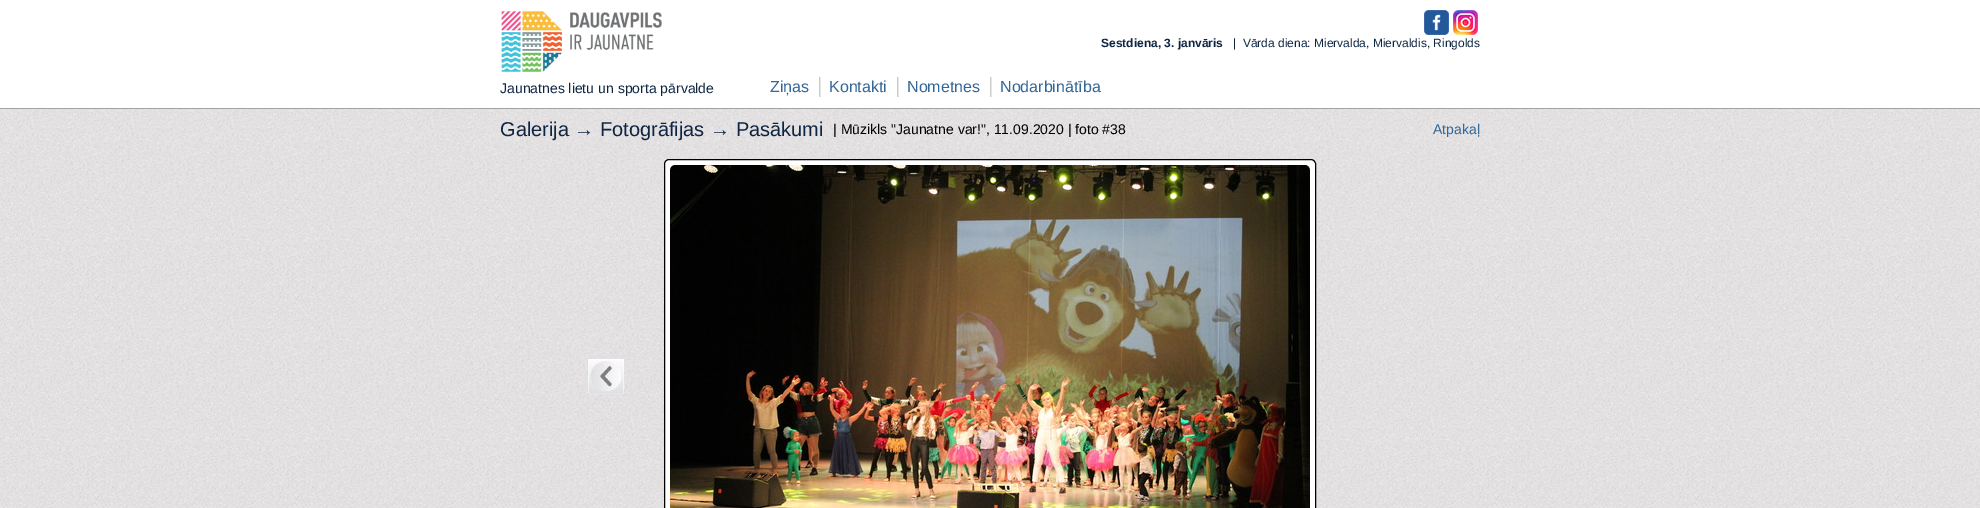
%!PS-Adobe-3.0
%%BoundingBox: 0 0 1980 508
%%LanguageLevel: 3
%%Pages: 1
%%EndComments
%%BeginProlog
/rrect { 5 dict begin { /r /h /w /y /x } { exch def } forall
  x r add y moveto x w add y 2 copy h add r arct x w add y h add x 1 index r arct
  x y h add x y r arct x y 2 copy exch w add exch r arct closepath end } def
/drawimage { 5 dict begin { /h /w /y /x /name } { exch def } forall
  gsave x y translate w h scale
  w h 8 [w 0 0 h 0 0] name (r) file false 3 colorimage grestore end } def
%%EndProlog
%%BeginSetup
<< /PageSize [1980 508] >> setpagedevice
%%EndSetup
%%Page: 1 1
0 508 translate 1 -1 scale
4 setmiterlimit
1 setgray
0 0 1980 508 rectfill
(images/1.raw) 1424 10 25 25 drawimage
(images/2.raw) 1453 10 25 25 drawimage
(images/3.raw) 501 11 161 61 drawimage
(images/4.raw) 819 77 2 20 drawimage
(images/4.raw) 897 77 2 20 drawimage
(images/4.raw) 990 77 2 20 drawimage
(images/5.raw) 0 109 1980 399 drawimage
0.643 0.631 0.631 setrgbcolor
0 108 1980 1 rectfill
(images/6.raw) 588 359 36 35 drawimage
1 setgray
664.5 159.5 651 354 4.5 rrect gsave fill grestore
0 setgray
stroke
(images/7.raw) 670 165 640 343 drawimage
/LiberationSans-Bold [12 0 0 -12 0 0] selectfont
0.055 0.145 0.259 setrgbcolor
1101 47 moveto (Sestdiena, 3. janvāris) show
/LiberationSans-Regular [12 0 0 -12 0 0] selectfont
1233 47 moveto (|  Vārda diena: Miervalda, Miervaldis, Ringolds) show
/LiberationSans-Regular [14 0 0 -14 0 0] selectfont
500 93 moveto (Jaunatnes lietu un sporta pārvalde) show
/LiberationSans-Regular [16 0 0 -16 0 0] selectfont
0.2 0.4 0.6 setrgbcolor
770 92 moveto (Ziņas) show
829 92 moveto (Kontakti) show
907 92 moveto (Nometnes) show
1000 92 moveto (Nodarbinātība) show
/LiberationSans-Regular [20 0 0 -20 0 0] selectfont
0.055 0.145 0.259 setrgbcolor
500 136 moveto (Galerija → Fotogrāfijas → Pasākumi) show
/LiberationSans-Regular [14 0 0 -14 0 0] selectfont
0 setgray
833 134 moveto (| Mūzikls "Jaunatne var!", 11.09.2020 | foto #38) show
0.2 0.4 0.6 setrgbcolor
1433 134 moveto (Atpakaļ) show
showpage
%%EOF
